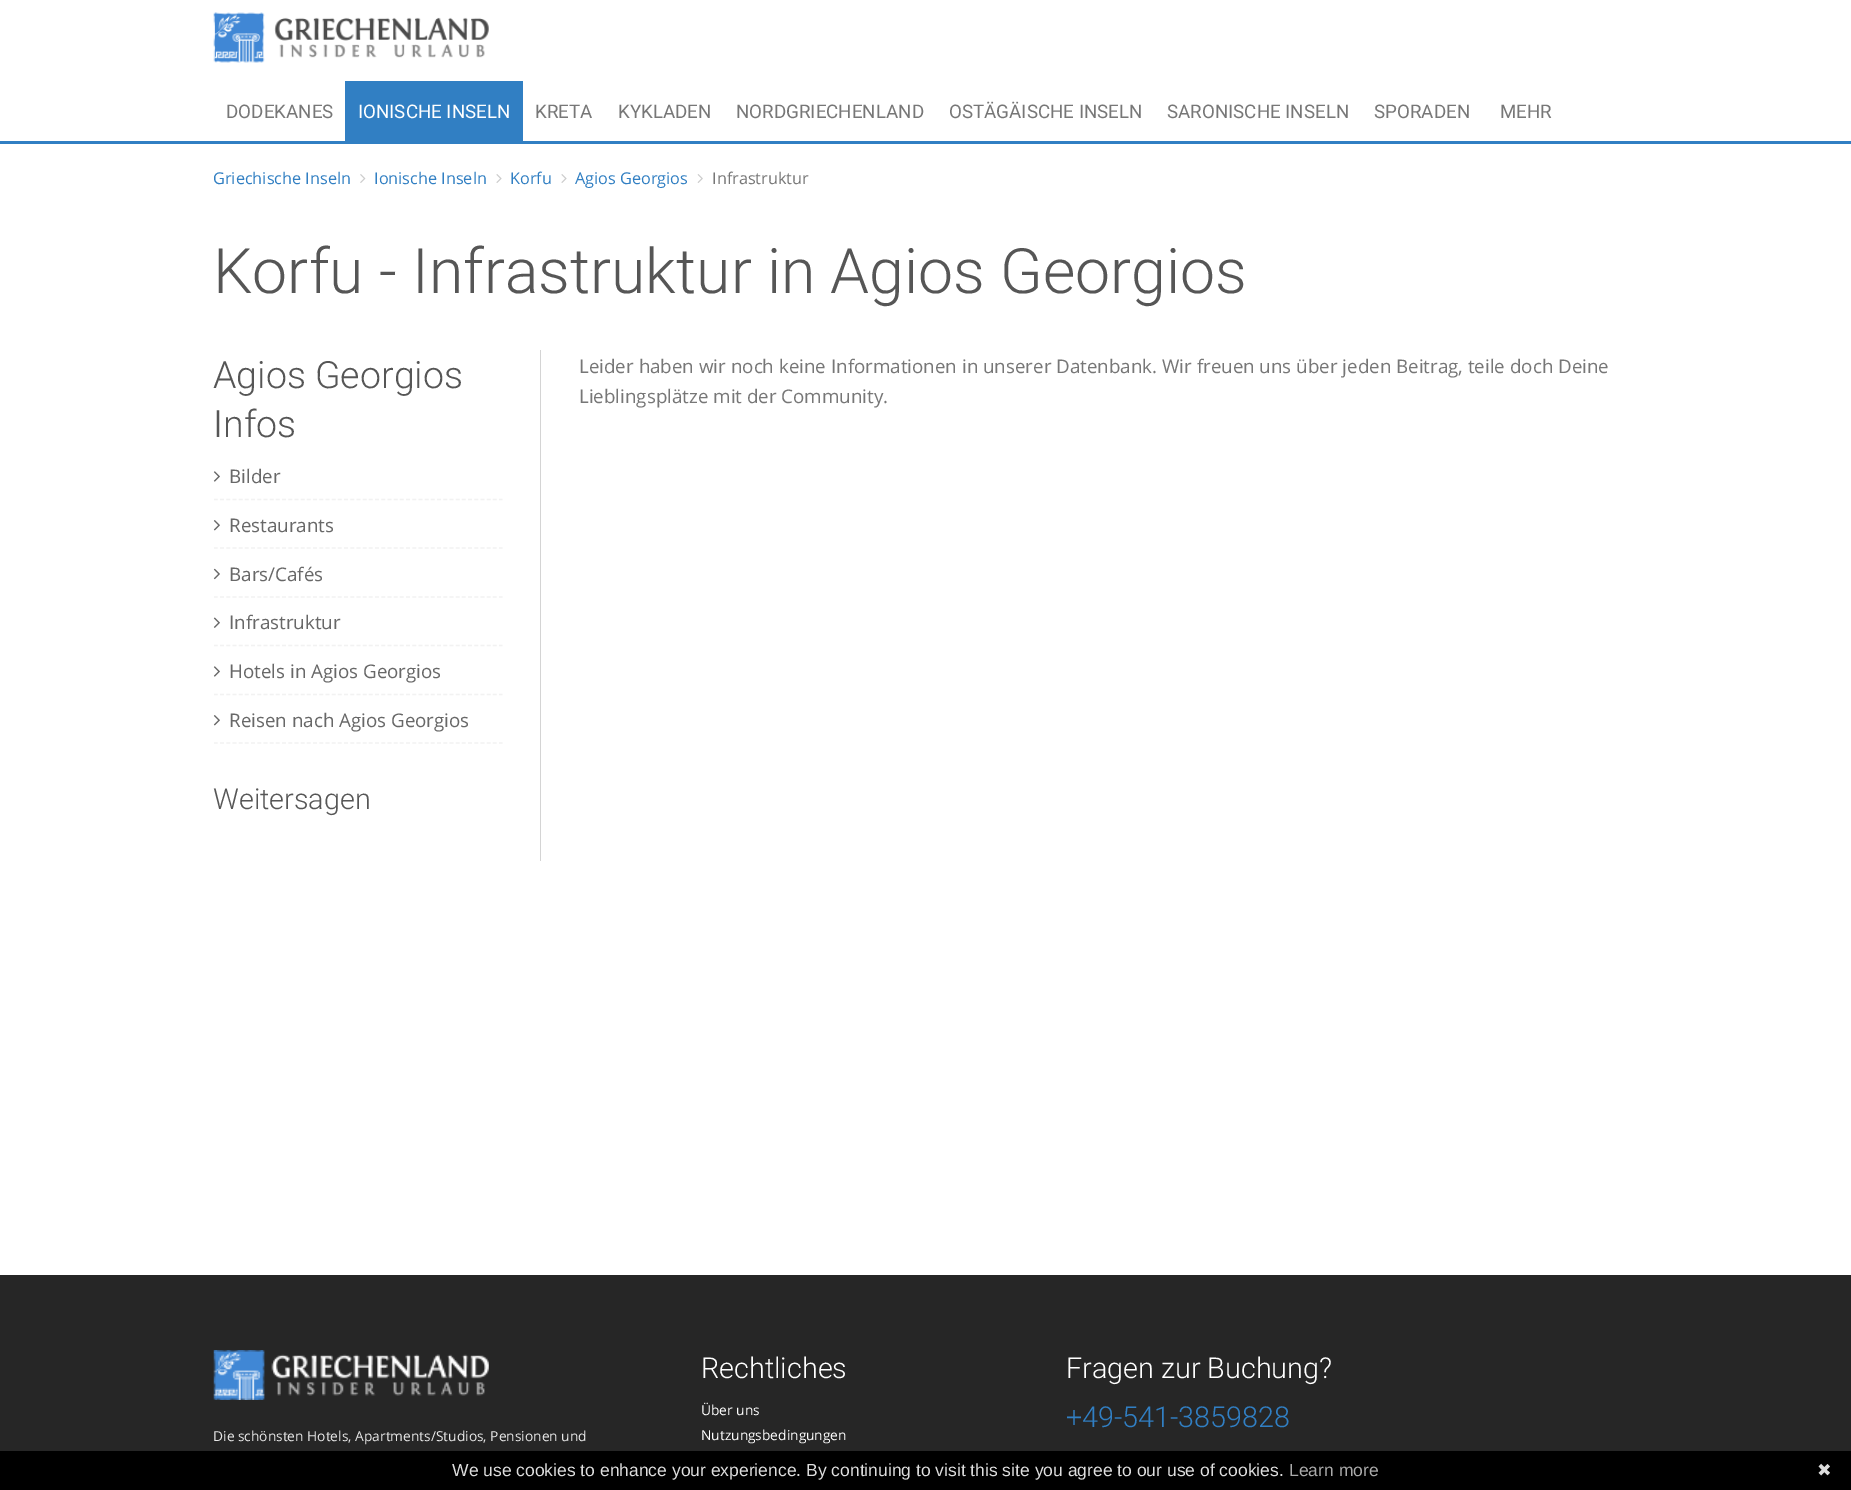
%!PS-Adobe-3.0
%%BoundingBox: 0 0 1851 1490
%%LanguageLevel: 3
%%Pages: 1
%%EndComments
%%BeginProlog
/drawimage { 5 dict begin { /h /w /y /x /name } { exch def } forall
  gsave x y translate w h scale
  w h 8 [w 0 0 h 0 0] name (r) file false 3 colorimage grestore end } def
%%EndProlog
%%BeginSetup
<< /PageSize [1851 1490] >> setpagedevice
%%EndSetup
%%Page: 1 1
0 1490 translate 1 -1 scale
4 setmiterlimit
1 setgray
0 0 1851 1490 rectfill
0.192 0.498 0.765 setrgbcolor
0 141 1851 3 rectfill
(images/1.raw) 213 12 276 51 drawimage
345 81 178 60 rectfill
(images/2.raw) 360 174 6 9 drawimage
(images/3.raw) 496 174 6 9 drawimage
(images/3.raw) 561 174 6 9 drawimage
(images/4.raw) 697 174 6 9 drawimage
0.831 setgray
540 350 1 511 rectfill
0.949 setgray
1.2 setlinewidth
[3.75 2.45] 0 setdash
newpath 214 499.5 moveto 502.5 499.5 lineto stroke
(images/5.raw) 213 471 7 11 drawimage
newpath 214 548 moveto 502.5 548 lineto stroke
(images/6.raw) 213 520 7 11 drawimage
newpath 214 597 moveto 502.5 597 lineto stroke
(images/7.raw) 213 568 7 12 drawimage
newpath 214 645.5 moveto 502.5 645.5 lineto stroke
(images/8.raw) 213 617 7 11 drawimage
newpath 214 694.5 moveto 502.5 694.5 lineto stroke
(images/5.raw) 213 666 7 11 drawimage
newpath 214 743 moveto 502.5 743 lineto stroke
(images/6.raw) 213 715 7 11 drawimage
0.149 setgray
0 1275 1851 176 rectfill
(images/9.raw) 213 1350 276 50 drawimage
0 setgray
0 1451 1851 39 rectfill
/Roboto-Regular [18.75 0 0 -18.75 0 0] selectfont
0.467 setgray
226 118 moveto (DODEKANES) show
1 setgray
358 118 moveto (IONISCHE INSELN) show
0.467 setgray
535 118 moveto (KRETA) show
618 118 moveto (KYKLADEN) show
736 118 moveto (NORDGRIECHENLAND) show
949 118 moveto (OSTÄGÄISCHE INSELN) show
1167 118 moveto (SARONISCHE INSELN) show
1374 118 moveto (SPORADEN) show
1500 118 moveto (MEHR) show
/OpenSans-Regular [16.25 0 0 -16.25 0 0] selectfont
0.192 0.498 0.765 setrgbcolor
213 184 moveto (Griechische Inseln) show
374 184 moveto (Ionische Inseln) show
510 184 moveto (Korfu) show
575 184 moveto (Agios Georgios) show
0.467 setgray
712 184 moveto (Infrastruktur) show
/Roboto-Light [62.5 0 0 -62.5 0 0] selectfont
0.337 setgray
213 293 moveto (Korfu - Infrastruktur in Agios Georgios) show
/Roboto-Light [37.5 0 0 -37.5 0 0] selectfont
213 388 moveto (Agios Georgios) show
213 437 moveto (Infos) show
/OpenSans-Regular [18.75 0 0 -18.75 0 0] selectfont
0.408 setgray
229 483 moveto (Bilder) show
229 532 moveto (Restaurants) show
229 581 moveto (Bars/Cafés) show
229 629 moveto (Infrastruktur) show
229 678 moveto (Hotels in Agios Georgios) show
229 727 moveto (Reisen nach Agios Georgios) show
/Roboto-Light [28.75 0 0 -28.75 0 0] selectfont
0.337 setgray
213 809 moveto (Weitersagen) show
/OpenSans-Regular [18.75 0 0 -18.75 0 0] selectfont
0.467 setgray
579 373 moveto (Leider haben wir noch keine Informationen in unserer Datenbank. Wir freuen uns über jeden Beitrag, teile doch Deine) show
579 403 moveto (Lieblingsplätze mit der Community.) show
/Roboto-Light [28.75 0 0 -28.75 0 0] selectfont
1 setgray
701 1378 moveto (Rechtliches) show
/OpenSans-Regular [13.75 0 0 -13.75 0 0] selectfont
701 1415 moveto (Über uns) show
701 1440 moveto (Nutzungsbedingungen) show
/Roboto-Light [28.75 0 0 -28.75 0 0] selectfont
1066 1378 moveto (Fragen zur Buchung?) show
0.192 0.498 0.765 setrgbcolor
1066 1427 moveto (+49-541-3859828) show
/OpenSans-Regular [13.75 0 0 -13.75 0 0] selectfont
0.902 setgray
213 1441 moveto (Die schönsten Hotels, Apartments/Studios, Pensionen und) show
/LiberationSans-Regular [17.5 0 0 -17.5 0 0] selectfont
0.867 setgray
452 1476 moveto (We use cookies to enhance your experience. By continuing to visit this site you agree to our use of cookies.) show
0.667 setgray
1289 1476 moveto (Learn more) show
/DejaVuSans-Regular [17.5 0 0 -17.5 0 0] selectfont
0.867 setgray
1817 1476 moveto (✖) show
showpage
%%EOF
